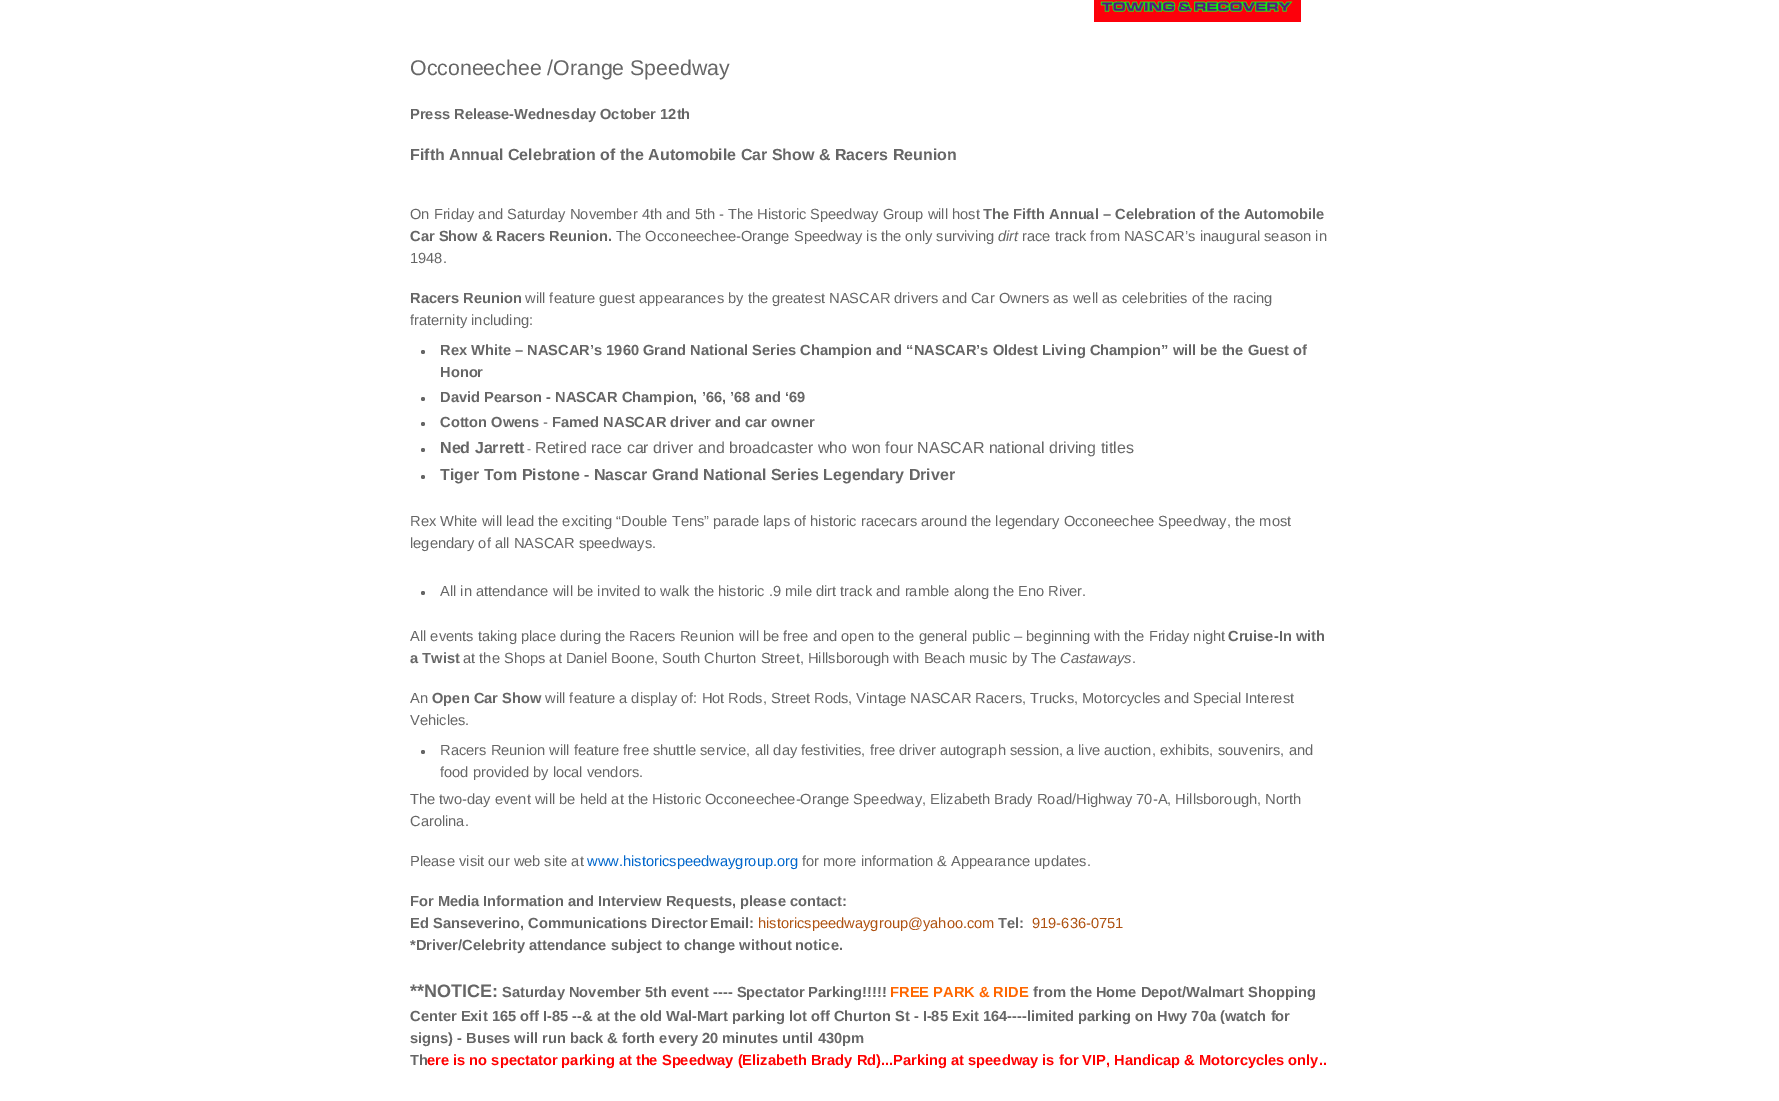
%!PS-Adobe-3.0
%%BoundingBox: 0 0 1779 1101
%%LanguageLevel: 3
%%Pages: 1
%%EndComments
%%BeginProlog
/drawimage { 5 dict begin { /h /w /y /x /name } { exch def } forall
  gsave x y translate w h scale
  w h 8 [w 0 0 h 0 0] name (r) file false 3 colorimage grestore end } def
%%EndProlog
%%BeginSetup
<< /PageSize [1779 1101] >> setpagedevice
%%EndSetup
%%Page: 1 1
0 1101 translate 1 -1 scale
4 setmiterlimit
1 setgray
0 0 1779 1101 rectfill
(images/1.raw) 1094 0 207 22 drawimage
0.4 setgray
newpath 423 352 2 0 360 arc closepath fill
newpath 423 399 2 0 360 arc closepath fill
newpath 423 424 2 0 360 arc closepath fill
newpath 423 450 2 0 360 arc closepath fill
newpath 423 477 2 0 360 arc closepath fill
newpath 423 593 2 0 360 arc closepath fill
newpath 423 752 2 0 360 arc closepath fill
/LiberationSans-Regular [21.3 0 0 -21.3 0 0] selectfont
410 75 moveto (Occoneechee /Orange Speedway) show
/LiberationSans-Bold [14.67 0 0 -14.67 0 0] selectfont
410 119 moveto (Press Release-Wednesday October 12th) show
/LiberationSans-Bold [16 0 0 -16 0 0] selectfont
410 160 moveto (Fifth Annual Celebration of the Automobile Car Show & Racers Reunion) show
/LiberationSans-Regular [14.67 0 0 -14.67 0 0] selectfont
410 219 moveto (On Friday and Saturday November 4th and 5th - The Historic Speedway Group will host) show
/LiberationSans-Bold [14.67 0 0 -14.67 0 0] selectfont
983 219 moveto (The Fifth Annual – Celebration of the Automobile) show
410 241 moveto (Car Show & Racers Reunion.) show
/LiberationSans-Regular [14.67 0 0 -14.67 0 0] selectfont
616 241 moveto (The Occoneechee-Orange Speedway is the only surviving) show
/LiberationSans-Italic [14.67 0 0 -14.67 0 0] selectfont
998 241 moveto (dirt) show
/LiberationSans-Regular [14.67 0 0 -14.67 0 0] selectfont
1022 241 moveto (race track from NASCAR’s inaugural season in) show
410 263 moveto (1948.) show
/LiberationSans-Bold [14.67 0 0 -14.67 0 0] selectfont
410 303 moveto (Racers Reunion) show
/LiberationSans-Regular [14.67 0 0 -14.67 0 0] selectfont
525 303 moveto (will feature guest appearances by the greatest NASCAR drivers and Car Owners as well as celebrities of the racing) show
410 325 moveto (fraternity including:) show
/LiberationSans-Bold [14.67 0 0 -14.67 0 0] selectfont
440 355 moveto (Rex White – NASCAR’s 1960 Grand National Series Champion and “NASCAR’s Oldest Living Champion” will be the Guest of) show
440 377 moveto (Honor) show
440 402 moveto (David Pearson - NASCAR Champion, ’66, ’68 and ‘69) show
440 427 moveto (Cotton Owens) show
/LiberationSans-Regular [14.67 0 0 -14.67 0 0] selectfont
543 427 moveto (-) show
/LiberationSans-Bold [14.67 0 0 -14.67 0 0] selectfont
552 427 moveto (Famed NASCAR driver and car owner) show
/LiberationSans-Bold [16 0 0 -16 0 0] selectfont
440 453 moveto (Ned Jarrett) show
/LiberationSans-Regular [12 0 0 -12 0 0] selectfont
527 453 moveto (-) show
/LiberationSans-Regular [16 0 0 -16 0 0] selectfont
535 453 moveto (Retired race car driver and broadcaster who won four NASCAR national driving titles) show
/LiberationSans-Bold [16 0 0 -16 0 0] selectfont
440 480 moveto (Tiger Tom Pistone - Nascar Grand National Series Legendary Driver) show
/LiberationSans-Regular [14.67 0 0 -14.67 0 0] selectfont
410 526 moveto (Rex White will lead the exciting “Double Tens” parade laps of historic racecars around the legendary Occoneechee Speedway, the most) show
410 548 moveto (legendary of all NASCAR speedways.) show
440 596 moveto (All in attendance will be invited to walk the historic .9 mile dirt track and ramble along the Eno River.) show
410 641 moveto (All events taking place during the Racers Reunion will be free and open to the general public – beginning with the Friday night) show
/LiberationSans-Bold [14.67 0 0 -14.67 0 0] selectfont
1228 641 moveto (Cruise-In with) show
410 663 moveto (a Twist) show
/LiberationSans-Regular [14.67 0 0 -14.67 0 0] selectfont
463 663 moveto (at the Shops at Daniel Boone, South Churton Street, Hillsborough with Beach music by The) show
/LiberationSans-Italic [14.67 0 0 -14.67 0 0] selectfont
1060 663 moveto (Castaways) show
/LiberationSans-Regular [14.67 0 0 -14.67 0 0] selectfont
1132 663 moveto (.) show
410 703 moveto (An) show
/LiberationSans-Bold [14.67 0 0 -14.67 0 0] selectfont
432 703 moveto (Open Car Show) show
/LiberationSans-Regular [14.67 0 0 -14.67 0 0] selectfont
545 703 moveto (will feature a display of: Hot Rods, Street Rods, Vintage NASCAR Racers, Trucks, Motorcycles and Special Interest) show
410 725 moveto (Vehicles.) show
440 755 moveto (Racers Reunion will feature free shuttle service, all day festivities, free driver autograph session,) show
1066 755 moveto (a live auction, exhibits, souvenirs, and) show
440 777 moveto (food provided by local vendors.) show
410 804 moveto (The two-day event will be held at the Historic Occoneechee-Orange Speedway, Elizabeth Brady Road/Highway 70-A, Hillsborough, North) show
410 826 moveto (Carolina.) show
410 866 moveto (Please visit our web site at) show
0 0.4 0.8 setrgbcolor
587 866 moveto (www.historicspeedwaygroup.org) show
0.4 setgray
802 866 moveto (for more information & Appearance updates.) show
/LiberationSans-Bold [14.67 0 0 -14.67 0 0] selectfont
410 906 moveto (For Media Information and Interview Requests, please contact:) show
410 928 moveto (Ed Sanseverino, Communications Director) show
710 928 moveto (Email:) show
/LiberationSans-Regular [14.67 0 0 -14.67 0 0] selectfont
0.686 0.322 0.067 setrgbcolor
758 928 moveto (historicspeedwaygroup@yahoo.com) show
/LiberationSans-Bold [14.67 0 0 -14.67 0 0] selectfont
0.4 setgray
998 928 moveto (Tel:) show
/LiberationSans-Regular [14.67 0 0 -14.67 0 0] selectfont
0.686 0.322 0.067 setrgbcolor
1032 928 moveto (919-636-0751) show
/LiberationSans-Bold [14.67 0 0 -14.67 0 0] selectfont
0.4 setgray
410 950 moveto (*Driver/Celebrity attendance subject to change without notice.) show
/LiberationSans-Bold [18 0 0 -18 0 0] selectfont
410 997 moveto (**NOTICE:) show
/LiberationSans-Bold [14.67 0 0 -14.67 0 0] selectfont
502 997 moveto (Saturday November 5th event ---- Spectator Parking!!!!!) show
1 0.4 0 setrgbcolor
890 997 moveto (FREE PARK & RIDE) show
0.4 setgray
1033 997 moveto (from the Home Depot/Walmart Shopping) show
410 1021 moveto (Center Exit 165 off I-85 --& at the old Wal-Mart parking lot off Churton St - I-85 Exit 164----limited parking on Hwy 70a \(watch for) show
410 1043 moveto (signs\) - Buses will run back & forth every 20 minutes until 430pm) show
410 1065 moveto (Th) show
1 0 0 setrgbcolor
427 1065 moveto (ere is no spectator parking at the Speedway \(Elizabeth Brady Rd\)...Parking at speedway is for VIP, Handicap & Motorcycles only..) show
showpage
%%EOF
